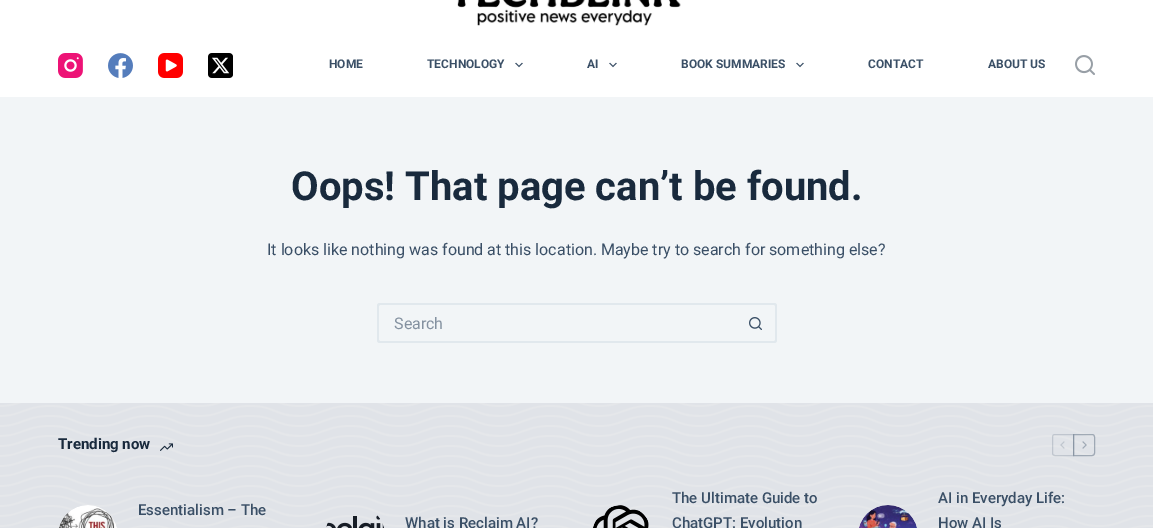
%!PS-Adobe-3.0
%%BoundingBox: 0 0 1153 528
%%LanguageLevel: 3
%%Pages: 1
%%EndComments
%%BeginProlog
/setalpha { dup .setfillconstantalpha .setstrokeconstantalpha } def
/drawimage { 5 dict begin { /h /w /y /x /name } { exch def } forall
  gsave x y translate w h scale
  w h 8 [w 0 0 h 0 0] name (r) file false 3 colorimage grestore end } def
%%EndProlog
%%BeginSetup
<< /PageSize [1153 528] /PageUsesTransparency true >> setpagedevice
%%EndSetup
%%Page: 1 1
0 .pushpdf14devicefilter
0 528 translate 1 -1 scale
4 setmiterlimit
0.949 0.961 0.969 setrgbcolor
0 0 1153 528 rectfill
1 setgray
0 0 1153 97 rectfill
(images/1.raw) 457 0 224 26 drawimage
(images/2.raw) 58 53 25 25 drawimage
(images/3.raw) 108 53 25 25 drawimage
(images/4.raw) 158 53 25 25 drawimage
(images/5.raw) 208 53 25 25 drawimage
(images/6.raw) 515 62 8 6 drawimage
(images/6.raw) 609 62 8 6 drawimage
(images/6.raw) 796 62 8 6 drawimage
(images/7.raw) 1075 55 20 20 drawimage
0.882 0.91 0.929 setrgbcolor
newpath 380 303 moveto 737 303 lineto 737 343 lineto 380 343 lineto 378 343 377 342 377 340 curveto 377 306 lineto 377 304 378 303 380 303 curveto closepath 380 305 moveto 737 305 lineto 737 341 lineto 380 341 lineto 379 340 lineto 379 306 lineto closepath eofill
newpath 737 303 moveto 774 303 lineto 776 303 777 304 777 306 curveto 777 340 lineto 777 342 776 343 774 343 curveto 737 343 lineto closepath 737 305 moveto 774 305 lineto 775 305 775 305 775 306 curveto 775 340 lineto 775 341 775 341 774 341 curveto 737 341 lineto closepath eofill
(images/8.raw) 749 317 13 13 drawimage
0.878 0.89 0.91 setrgbcolor
0 403 1153 125 rectfill
(images/9.raw) 0 403 1153 125 drawimage
(images/10.raw) 160 443 13 8 drawimage
0.2 setalpha
0.227 0.31 0.4 setrgbcolor
newpath 1055 434.5 moveto 1073.5 434.5 lineto 1073.5 455.5 lineto 1055 455.5 lineto 1053.5 455.5 1052.5 454.5 1052.5 453 curveto 1052.5 437 lineto 1052.5 435.5 1053.5 434.5 1055 434.5 curveto closepath stroke
1 setalpha
(images/11.raw) 1060 441 5 8 drawimage
0.4 setalpha
newpath 1073.5 434.5 moveto 1092 434.5 lineto 1093.5 434.5 1094.5 435.5 1094.5 437 curveto 1094.5 453 lineto 1094.5 454.5 1093.5 455.5 1092 455.5 curveto 1073.5 455.5 lineto closepath stroke
1 setalpha
(images/12.raw) 1082 441 5 8 drawimage
(images/13.raw) 59 505 58 23 drawimage
(images/14.raw) 593 505 56 23 drawimage
(images/15.raw) 859 505 58 23 drawimage
(images/16.raw) 326 515 58 13 drawimage
/Roboto-Bold [12 0 0 -12 0 0] selectfont
329 68 moveto (HOME) show
427 68 moveto (TECHNOLOGY) show
587 68 moveto (AI) show
681 68 moveto (BOOK SUMMARIES) show
868 68 moveto (CONTACT) show
988 68 moveto (ABOUT US) show
/Roboto-Bold [40 0 0 -40 0 0] selectfont
0.098 0.165 0.239 setrgbcolor
291 200 moveto (Oops! That page can’t be found.) show
/Roboto-Regular [16 0 0 -16 0 0] selectfont
0.227 0.31 0.4 setrgbcolor
267 255 moveto (It looks like nothing was found at this location. Maybe try to search for something else?) show
0.518 0.569 0.627 setrgbcolor
394 329 moveto (Search) show
/Roboto-Bold [15 0 0 -15 0 0] selectfont
0.098 0.165 0.239 setrgbcolor
58 449 moveto (Trending now) show
/Roboto-Medium [15 0 0 -15 0 0] selectfont
0.227 0.31 0.4 setrgbcolor
138 515 moveto (Essentialism – The) show
672 503 moveto (The Ultimate Guide to) show
672 528 moveto (ChatGPT: Evolution) show
938 503 moveto (AI in Everyday Life:) show
938 528 moveto (How AI Is) show
405 528 moveto (What is Reclaim AI?) show
.poppdf14devicefilter showpage
%%EOF
